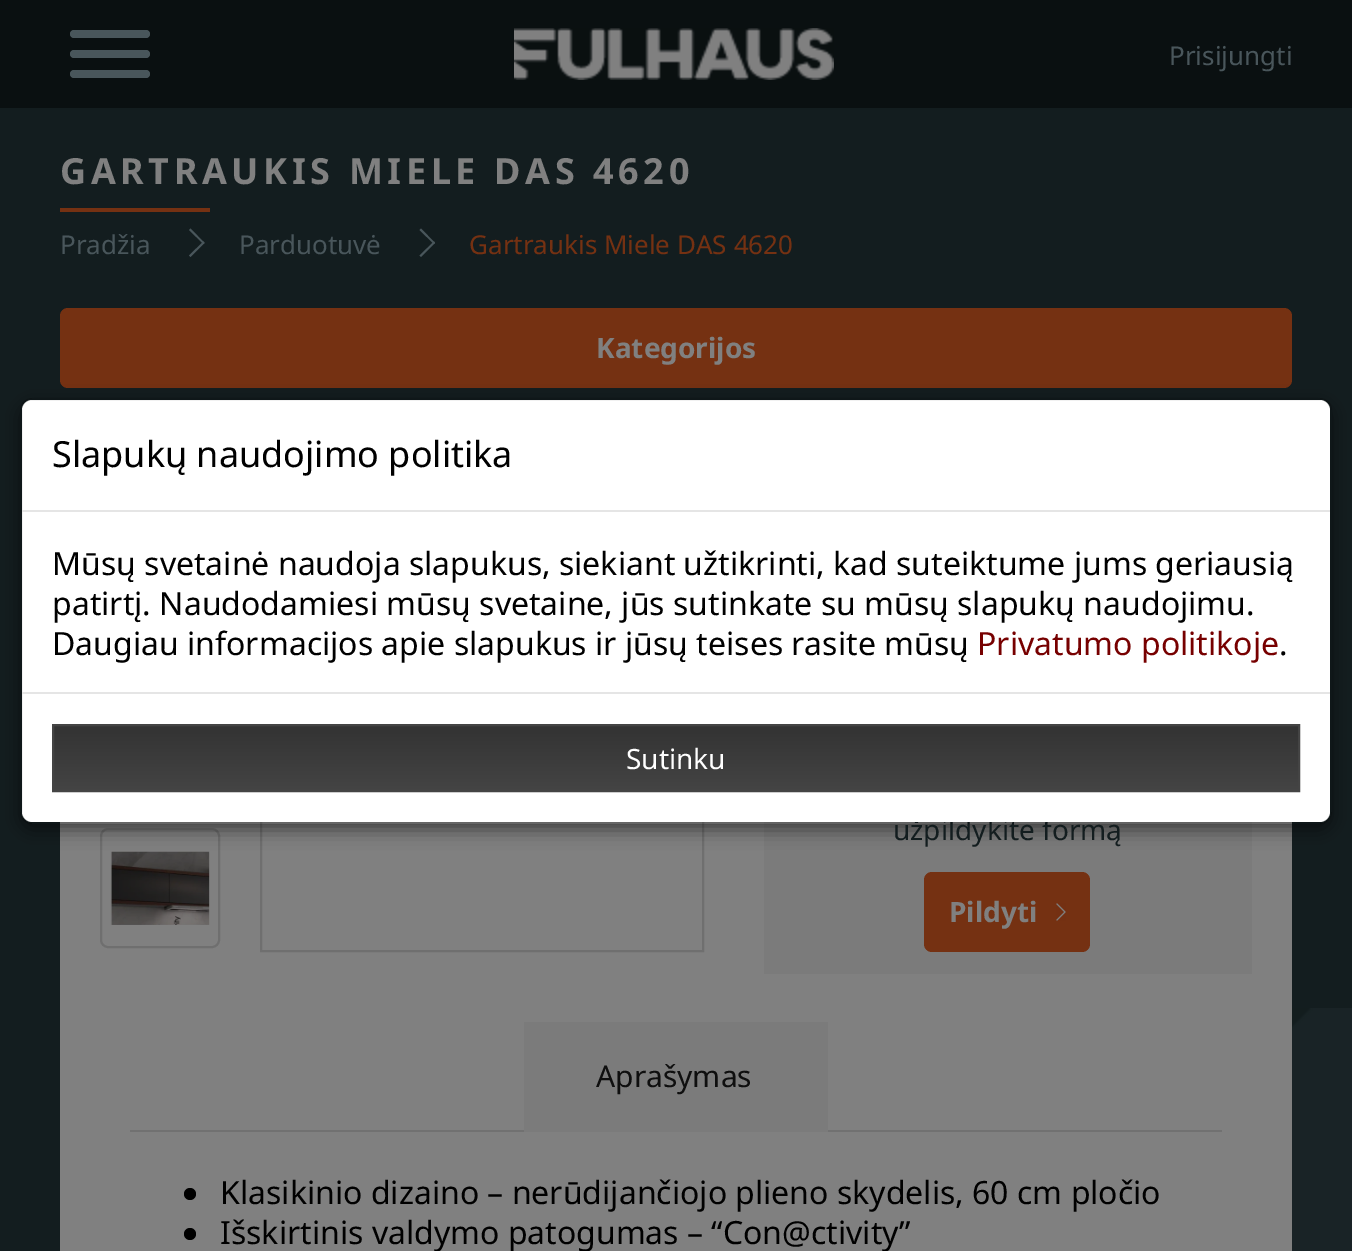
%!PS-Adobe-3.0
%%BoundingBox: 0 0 1352 1251
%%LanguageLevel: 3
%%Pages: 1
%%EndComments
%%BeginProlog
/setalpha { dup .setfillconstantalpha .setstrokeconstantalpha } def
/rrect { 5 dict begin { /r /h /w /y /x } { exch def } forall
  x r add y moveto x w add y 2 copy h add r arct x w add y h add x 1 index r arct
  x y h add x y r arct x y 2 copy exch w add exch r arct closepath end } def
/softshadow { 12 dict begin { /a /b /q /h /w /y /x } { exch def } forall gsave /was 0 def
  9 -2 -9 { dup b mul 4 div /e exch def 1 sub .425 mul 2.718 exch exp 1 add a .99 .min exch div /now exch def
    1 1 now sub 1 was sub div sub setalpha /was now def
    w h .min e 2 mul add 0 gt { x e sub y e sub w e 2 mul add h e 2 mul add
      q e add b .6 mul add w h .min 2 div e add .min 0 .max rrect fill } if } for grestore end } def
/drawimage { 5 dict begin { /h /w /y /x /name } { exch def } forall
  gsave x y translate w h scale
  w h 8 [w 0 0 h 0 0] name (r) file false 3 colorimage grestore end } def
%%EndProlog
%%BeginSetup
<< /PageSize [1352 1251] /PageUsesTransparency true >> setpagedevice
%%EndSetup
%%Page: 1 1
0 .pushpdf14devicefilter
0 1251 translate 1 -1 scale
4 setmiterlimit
0.075 0.114 0.122 setrgbcolor
0 0 1352 1251 rectfill
0.039 0.063 0.067 setrgbcolor
0 0 1352 108 rectfill
0.286 0.337 0.357 setrgbcolor
70 70 80 8 4 rrect fill
70 30 80 8 4 rrect fill
70 50 80 8 4 rrect fill
(images/1.raw) 514 28 320 52 drawimage
(images/2.raw) 1292 1008 60 243 drawimage
0.459 0.192 0.071 setrgbcolor
60 208 150 4 rectfill
0.286 0.337 0.357 setrgbcolor
newpath 189 230 moveto 190.5 228.5 lineto 204.5 243 lineto 203.5 244 lineto closepath fill
newpath 189 255.5 moveto 203.5 241.5 lineto 204.5 243 lineto 190.5 257 lineto closepath fill
newpath 419.5 230 moveto 421 228.5 lineto 435 243 lineto 434 244 lineto closepath fill
newpath 419.5 255.5 moveto 434 241.5 lineto 435 243 lineto 421 257 lineto closepath fill
0.459 0.192 0.071 setrgbcolor
60 308 1232 80 8 rrect fill
0.502 setgray
60 822 1232 429 rectfill
0.435 setgray
2 setlinewidth
101 829 118 118 7 rrect stroke
(images/3.raw) 110 851 100 74 drawimage
261 509 442 442 rectstroke
0.482 setgray
764 822 488 152 rectfill
0.459 0.192 0.071 setrgbcolor
924 872 166 80 8 rrect fill
(images/4.raw) 1056 903 10 18 drawimage
0.443 setgray
130 1130 1092 2 rectfill
0.482 setgray
524 1022 304 110 rectfill
0 setgray
newpath 190 1194 6 0 360 arc closepath fill
newpath 190 1234 6 0 360 arc closepath fill
gsave
newpath 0 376 moveto 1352 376 lineto 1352 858 lineto 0 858 lineto closepath 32 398 moveto 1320 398 lineto 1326.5 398 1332 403.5 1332 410 curveto 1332 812 lineto 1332 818.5 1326.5 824 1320 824 curveto 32 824 lineto 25.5 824 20 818.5 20 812 curveto 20 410 lineto 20 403.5 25.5 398 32 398 curveto closepath eoclip newpath
20 404 1312 426 12 9 0.5 softshadow
grestore
/NotoSans-Regular [26 0 0 -26 0 0] selectfont
0.286 0.337 0.357 setrgbcolor
1169 65 moveto (Prisijungti) show
/NotoSans-Bold [36 0 0 -36 0 0] selectfont
0.502 setgray
60 184 moveto 4.6 0 (GARTRAUKIS MIELE DAS 4620) ashow
/NotoSans-Regular [26 0 0 -26 0 0] selectfont
0.286 0.337 0.357 setrgbcolor
60 254 moveto (Pradžia) show
239 254 moveto (Parduotuvė) show
0.459 0.192 0.071 setrgbcolor
469 254 moveto (Gartraukis Miele DAS 4620) show
/NotoSans-Bold [28 0 0 -28 0 0] selectfont
0.502 setgray
596 358 moveto (Kategorijos) show
/NotoSans-Regular [28 0 0 -28 0 0] selectfont
0.075 0.114 0.122 setrgbcolor
893 840 moveto (užpildykite formą) show
/NotoSans-Bold [28 0 0 -28 0 0] selectfont
0.502 setgray
949 922 moveto (Pildyti) show
/NotoSans-Regular [30 0 0 -30 0 0] selectfont
0.059 setgray
596 1087 moveto (Aprašymas) show
/NotoSans-Regular [32 0 0 -32 0 0] selectfont
0 setgray
220 1204 moveto (Klasikinio dizaino – nerūdijančiojo plieno skydelis, 60 cm pločio) show
220 1244 moveto (Išskirtinis valdymo patogumas – “Con@ctivity”) show
1 setgray
22 400 1308 422 10 rrect fill
0.2 setalpha
0 setgray
21 399 1310 424 11 rrect stroke
1 setalpha
0.898 setgray
22 510 1308 2 rectfill
/NotoSans-Regular [36 0 0 -36 0 0] selectfont
0 setgray
52 467 moveto (Slapukų naudojimo politika) show
/NotoSans-Regular [32 0 0 -32 0 0] selectfont
52 575 moveto (Mūsų svetainė naudoja slapukus, siekiant užtikrinti, kad suteiktume jums geriausią) show
52 615 moveto (patirtį. Naudodamiesi mūsų svetaine, jūs sutinkate su mūsų slapukų naudojimu.) show
52 655 moveto (Daugiau informacijos apie slapukus ir jūsų teises rasite mūsų) show
0.467 0 0 setrgbcolor
977 655 moveto (Privatumo politikoje) show
0 setgray
1279 655 moveto (.) show
0.898 setgray
22 692 1308 2 rectfill
gsave newpath 54 726 moveto 1298 726 lineto 1298 790 lineto 54 790 lineto closepath clip newpath
<< /ShadingType 2 /ColorSpace /DeviceRGB /Coords [676 726 676 790] /Extend [true true] /Function << /FunctionType 2 /Domain [0 1] /C0 [0.2 0.2 0.2] /C1 [0.267 0.267 0.267] /N 1 >> >> shfill grestore
0.267 setgray
53 725 1246 66 rectstroke
/NotoSans-Regular [28 0 0 -28 0 0] selectfont
1 setgray
626 769 moveto (Sutinku) show
.poppdf14devicefilter showpage
%%EOF
